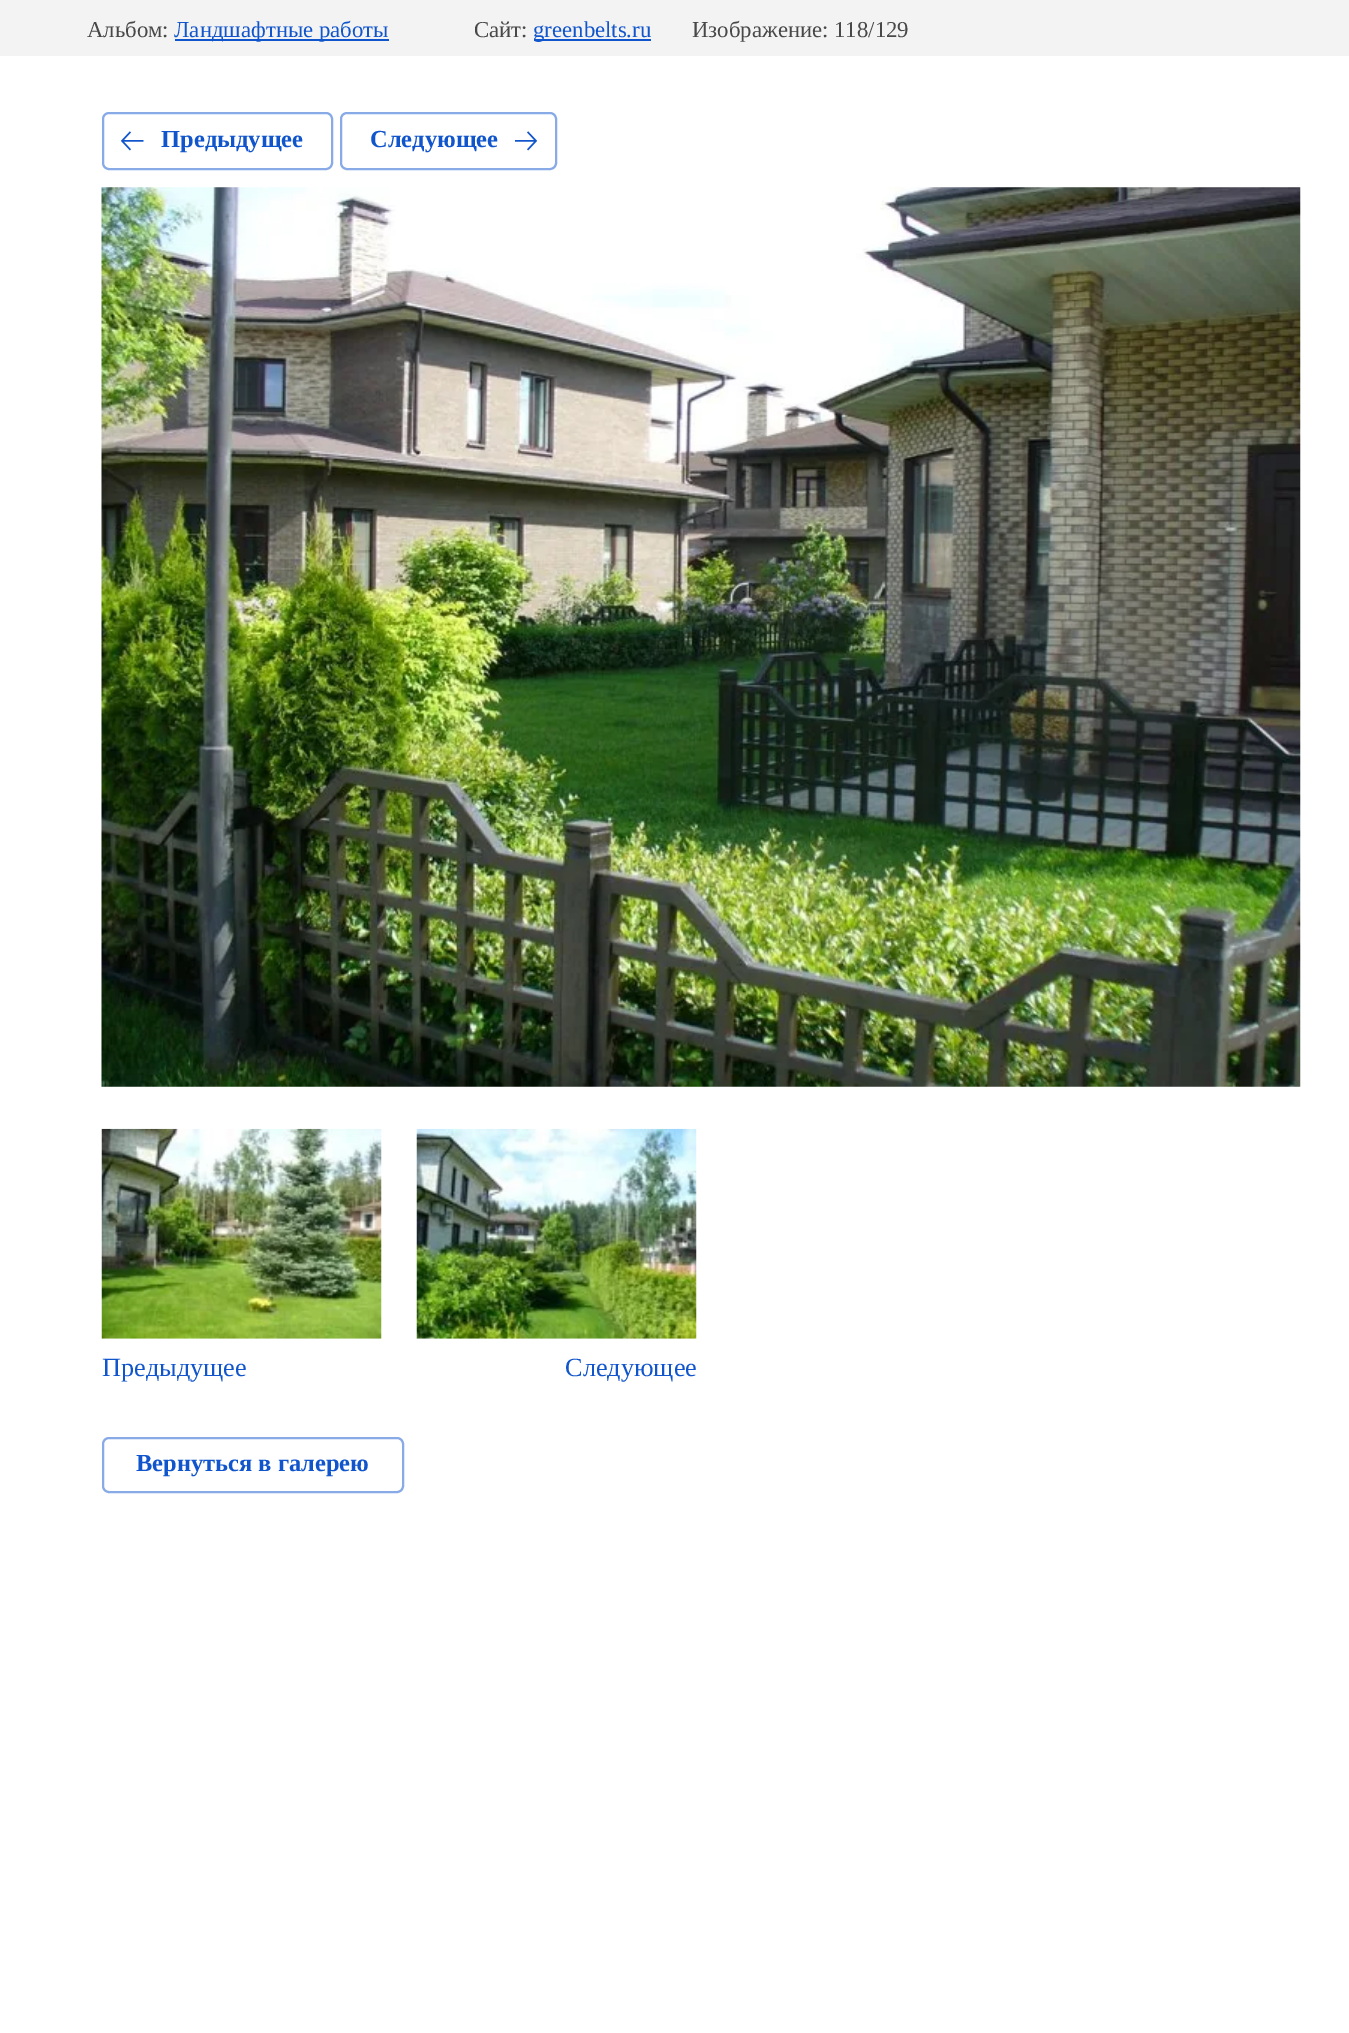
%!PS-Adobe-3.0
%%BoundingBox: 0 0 1349 2033
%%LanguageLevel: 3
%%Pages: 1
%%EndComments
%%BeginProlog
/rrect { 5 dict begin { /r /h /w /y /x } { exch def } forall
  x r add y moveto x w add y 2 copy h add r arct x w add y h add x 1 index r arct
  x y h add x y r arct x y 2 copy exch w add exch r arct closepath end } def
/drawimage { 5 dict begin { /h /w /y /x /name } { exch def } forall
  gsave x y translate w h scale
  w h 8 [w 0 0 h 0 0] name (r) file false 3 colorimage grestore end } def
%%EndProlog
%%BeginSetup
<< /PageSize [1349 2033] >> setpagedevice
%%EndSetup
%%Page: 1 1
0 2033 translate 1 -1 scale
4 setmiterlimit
1 setgray
0 0 1349 2033 rectfill
0.953 setgray
0 0 1349 56 rectfill
0.067 0.333 0.8 setrgbcolor
175 39 214 2 rectfill
534 39 117 2 rectfill
0.533 0.667 0.902 setrgbcolor
2 setlinewidth
103 113 229 56 6 rrect stroke
(images/1.raw) 121 131 23 20 drawimage
341 113 215 56 6 rrect stroke
(images/2.raw) 515 131 22 20 drawimage
(images/3.raw) 101 187 1200 900 drawimage
(images/4.raw) 101 1128 281 211 drawimage
(images/5.raw) 416 1128 281 211 drawimage
103 1438 300 54 6 rrect stroke
/LiberationSerif-Regular [22.75 0 0 -22.75 0 0] selectfont
0.282 setgray
87 37 moveto (Альбом:) show
0.067 0.333 0.8 setrgbcolor
174 37 moveto (Ландшафтные работы) show
0.282 setgray
474 37 moveto (Сайт:) show
0.067 0.333 0.8 setrgbcolor
533 37 moveto (greenbelts.ru) show
0.282 setgray
692 37 moveto (Изображение: 118/129) show
/LiberationSerif-Bold [24.5 0 0 -24.5 0 0] selectfont
0.067 0.333 0.8 setrgbcolor
161 147 moveto (Предыдущее) show
370 147 moveto (Следующее) show
/LiberationSerif-Regular [26.25 0 0 -26.25 0 0] selectfont
102 1376 moveto (Предыдущее) show
565 1376 moveto (Следующее) show
/LiberationSerif-Bold [24.5 0 0 -24.5 0 0] selectfont
136 1471 moveto (Вернуться в галерею) show
showpage
%%EOF
